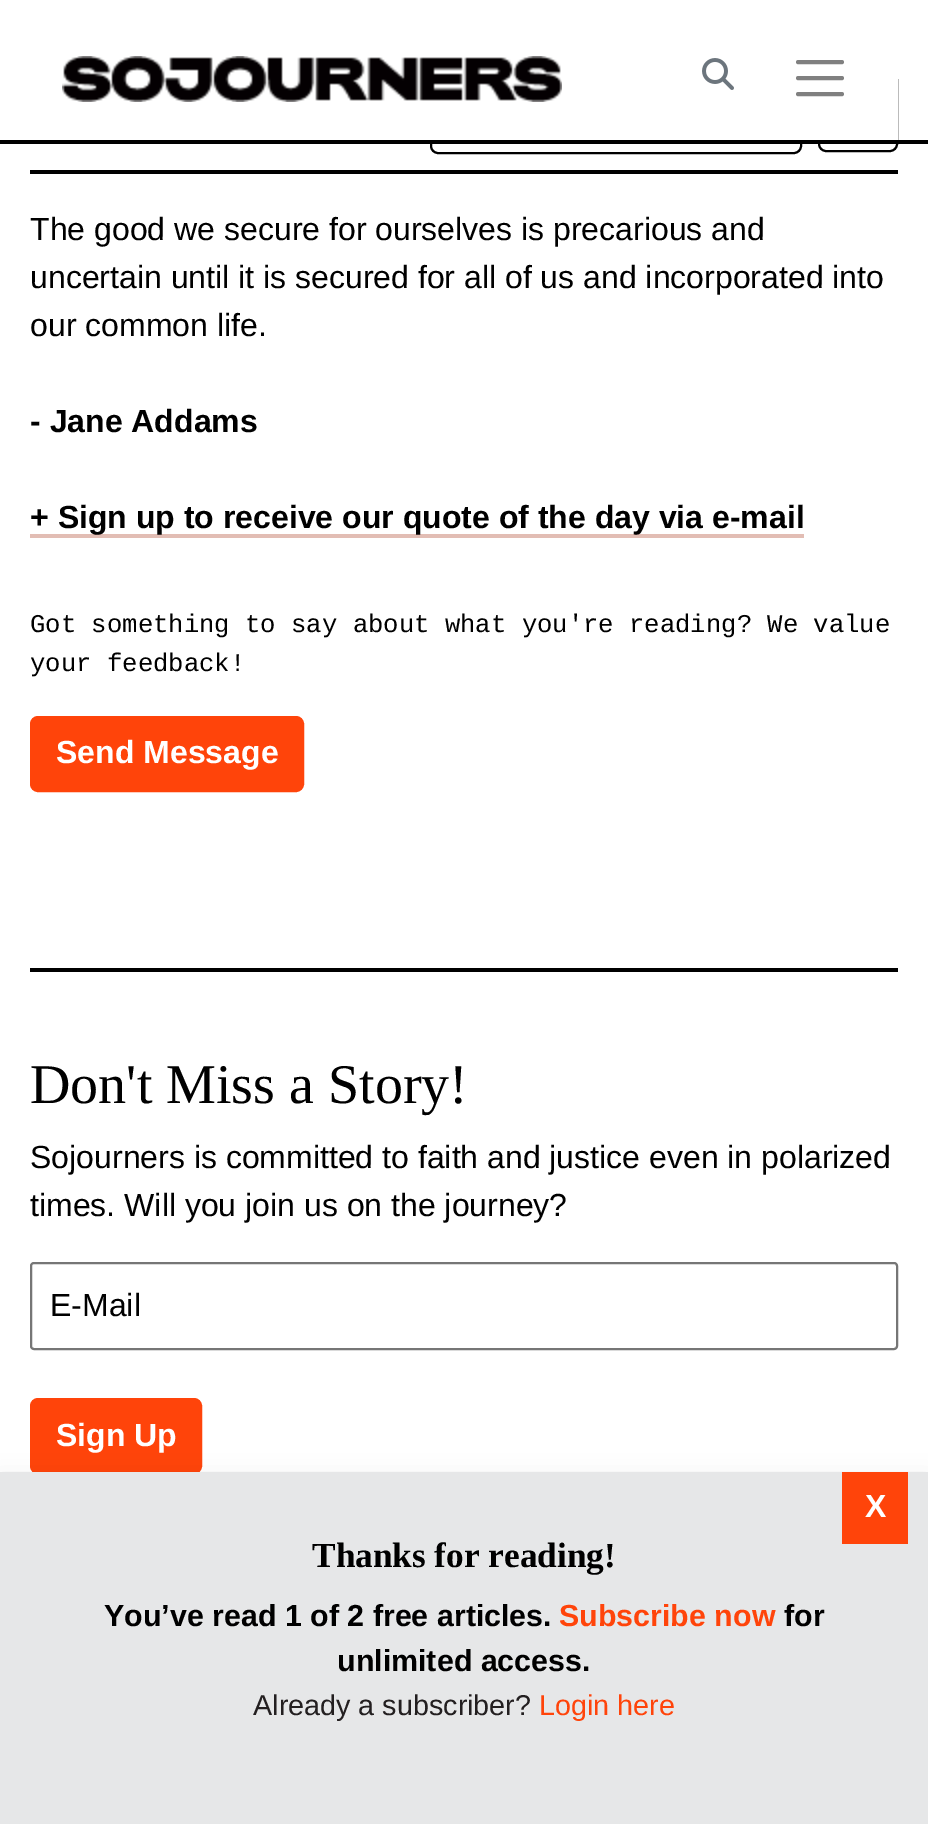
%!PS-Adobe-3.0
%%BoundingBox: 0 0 928 1824
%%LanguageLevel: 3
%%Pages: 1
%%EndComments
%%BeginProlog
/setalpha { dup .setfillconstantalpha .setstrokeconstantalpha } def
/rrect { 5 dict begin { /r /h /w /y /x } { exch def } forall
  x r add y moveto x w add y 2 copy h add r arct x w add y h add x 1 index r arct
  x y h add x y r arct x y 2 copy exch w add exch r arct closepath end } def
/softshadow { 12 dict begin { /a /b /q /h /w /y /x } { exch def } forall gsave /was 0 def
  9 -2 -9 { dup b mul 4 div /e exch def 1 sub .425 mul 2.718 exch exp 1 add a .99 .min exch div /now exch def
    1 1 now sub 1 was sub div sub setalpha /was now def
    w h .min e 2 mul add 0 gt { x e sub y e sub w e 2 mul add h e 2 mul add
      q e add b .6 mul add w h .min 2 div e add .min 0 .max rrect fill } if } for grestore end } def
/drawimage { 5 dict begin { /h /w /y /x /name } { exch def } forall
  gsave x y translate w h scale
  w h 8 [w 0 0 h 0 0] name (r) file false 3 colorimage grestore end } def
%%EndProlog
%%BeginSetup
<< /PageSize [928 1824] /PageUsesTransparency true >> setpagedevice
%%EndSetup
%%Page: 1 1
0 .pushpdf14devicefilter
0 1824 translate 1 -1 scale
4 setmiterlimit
1 setgray
0 0 928 1824 rectfill
0 setgray
2 setlinewidth
431 71 370 82 7 rrect stroke
819 73 78 78 7 rrect stroke
1 setgray
430 70 468 70 rectfill
(images/1.raw) 62 56 500 46 drawimage
(images/2.raw) 702 58 32 32 drawimage
0.502 setgray
4 setlinewidth
1 setlinecap
newpath 798 62 moveto 842 62 lineto 798 78 moveto 842 78 lineto 798 94 moveto 842 94 lineto stroke
0 setgray
0 140 928 4 rectfill
30 170 868 4 rectfill
0.886 0.741 0.706 setrgbcolor
30 534 774 4 rectfill
1 0.267 0.039 setrgbcolor
31 717 272 74 7 rrect gsave fill grestore
2 setlinewidth
0 setlinecap
stroke
0 setgray
30 968 868 4 rectfill
0.463 setgray
31 1263 866 86 3 rrect stroke
1 0.267 0.039 setrgbcolor
31 1399 170 74 7 rrect gsave fill grestore
stroke
0 setgray
0 1480 928 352 0 12 0.1 softshadow
0.902 0.906 0.91 setrgbcolor
0 1472 928 352 rectfill
1 0.267 0.039 setrgbcolor
842 1472 66 72 rectfill
/LiberationSans-Regular [32 0 0 -32 0 0] selectfont
0 setgray
30 240 moveto (The good we secure for ourselves is precarious and) show
30 288 moveto (uncertain until it is secured for all of us and incorporated into) show
30 336 moveto (our common life.) show
/LiberationSans-Bold [32 0 0 -32 0 0] selectfont
30 432 moveto (- Jane Addams) show
30 528 moveto (+ Sign up to receive our quote of the day via e-mail) show
/LiberationMono-Regular [25.6 0 0 -25.6 0 0] selectfont
30 632 moveto (Got something to say about what you're reading? We value) show
30 671 moveto (your feedback!) show
/LiberationSans-Bold [32 0 0 -32 0 0] selectfont
1 setgray
56 763 moveto (Send Message) show
/LiberationSerif-Regular [56 0 0 -56 0 0] selectfont
0 setgray
30 1103 moveto (Don't Miss a Story!) show
/LiberationSans-Regular [32 0 0 -32 0 0] selectfont
30 1168 moveto (Sojourners is committed to faith and justice even in polarized) show
30 1216 moveto (times. Will you join us on the journey?) show
50 1316 moveto (E-Mail) show
/LiberationSans-Bold [32 0 0 -32 0 0] selectfont
1 setgray
56 1446 moveto (Sign Up) show
865 1517 moveto (X) show
/LiberationSerif-Bold [35.25 0 0 -35.25 0 0] selectfont
0 setgray
312 1567 moveto (Thanks for reading!) show
/LiberationSans-Bold [30.4 0 0 -30.4 0 0] selectfont
104 1626 moveto (You’ve read 1 of 2 free articles.) show
1 0.267 0.039 setrgbcolor
559 1626 moveto (Subscribe now) show
0 setgray
784 1626 moveto (for) show
337 1671 moveto (unlimited access.) show
/LiberationSans-Regular [28.75 0 0 -28.75 0 0] selectfont
0.137 0.122 0.125 setrgbcolor
253 1715 moveto (Already a subscriber?) show
1 0.267 0.039 setrgbcolor
539 1715 moveto (Login here) show
.poppdf14devicefilter showpage
%%EOF
